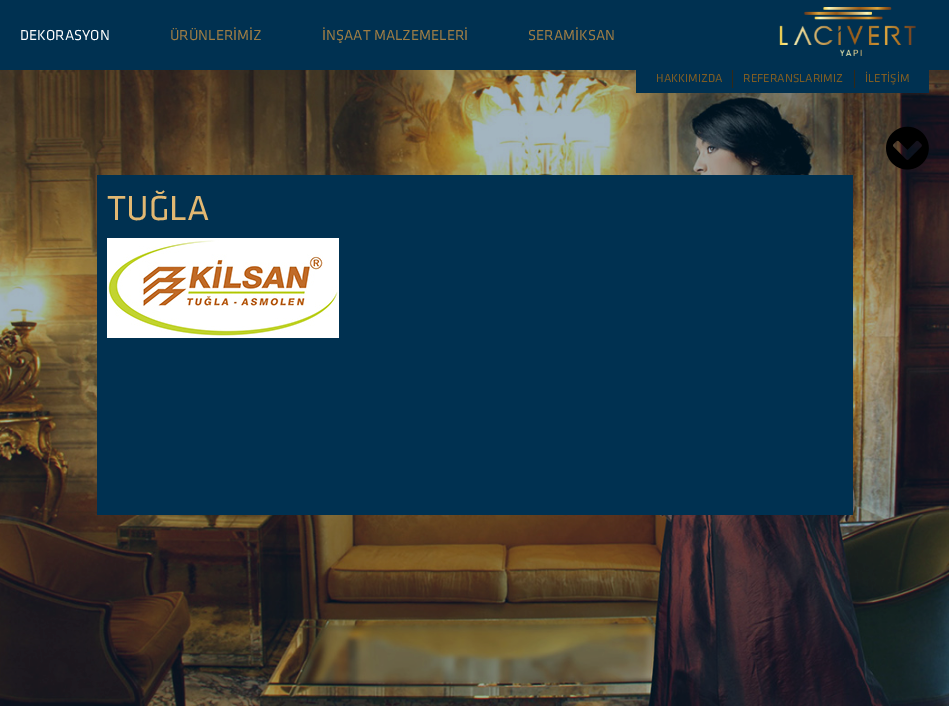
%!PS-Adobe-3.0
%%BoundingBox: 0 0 949 706
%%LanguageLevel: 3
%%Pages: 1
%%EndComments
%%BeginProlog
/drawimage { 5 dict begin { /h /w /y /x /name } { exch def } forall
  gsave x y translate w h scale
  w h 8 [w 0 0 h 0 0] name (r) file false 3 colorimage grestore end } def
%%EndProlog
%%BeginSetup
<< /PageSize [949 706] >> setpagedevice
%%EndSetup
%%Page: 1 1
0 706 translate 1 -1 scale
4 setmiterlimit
0 0.192 0.318 setrgbcolor
0 0 949 706 rectfill
(images/4.raw) 0 70 949 636 drawimage
636 70 293 23 rectfill
0.196 0.157 0.086 setrgbcolor
732 68 1 20 rectfill
854 68 1 20 rectfill
0 0.192 0.318 setrgbcolor
732 68 123 2 rectfill
(images/1.raw) 779 7 137 49 drawimage
(images/2.raw) 886 126 43 44 drawimage
97 175 756 340 rectfill
(images/3.raw) 107 238 232 100 drawimage
/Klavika-Regular [15 0 0 -15 0 0] selectfont
1 setgray
20 40 moveto (DEKORASYON) show
0.62 0.49 0.271 setrgbcolor
170 40 moveto (ÜRÜNLERİMİZ) show
322 40 moveto (İNŞAAT MALZEMELERİ) show
528 40 moveto (SERAMİKSAN) show
/Klavika-Regular [12 0 0 -12 0 0] selectfont
0.49 0.361 0.141 setrgbcolor
656 82 moveto (HAKKIMIZDA) show
743 82 moveto (REFERANSLARIMIZ) show
865 82 moveto (İLETİŞİM) show
/Klavika-Regular [36 0 0 -36 0 0] selectfont
0.886 0.722 0.447 setrgbcolor
107 220 moveto (TUĞLA) show
showpage
%%EOF
